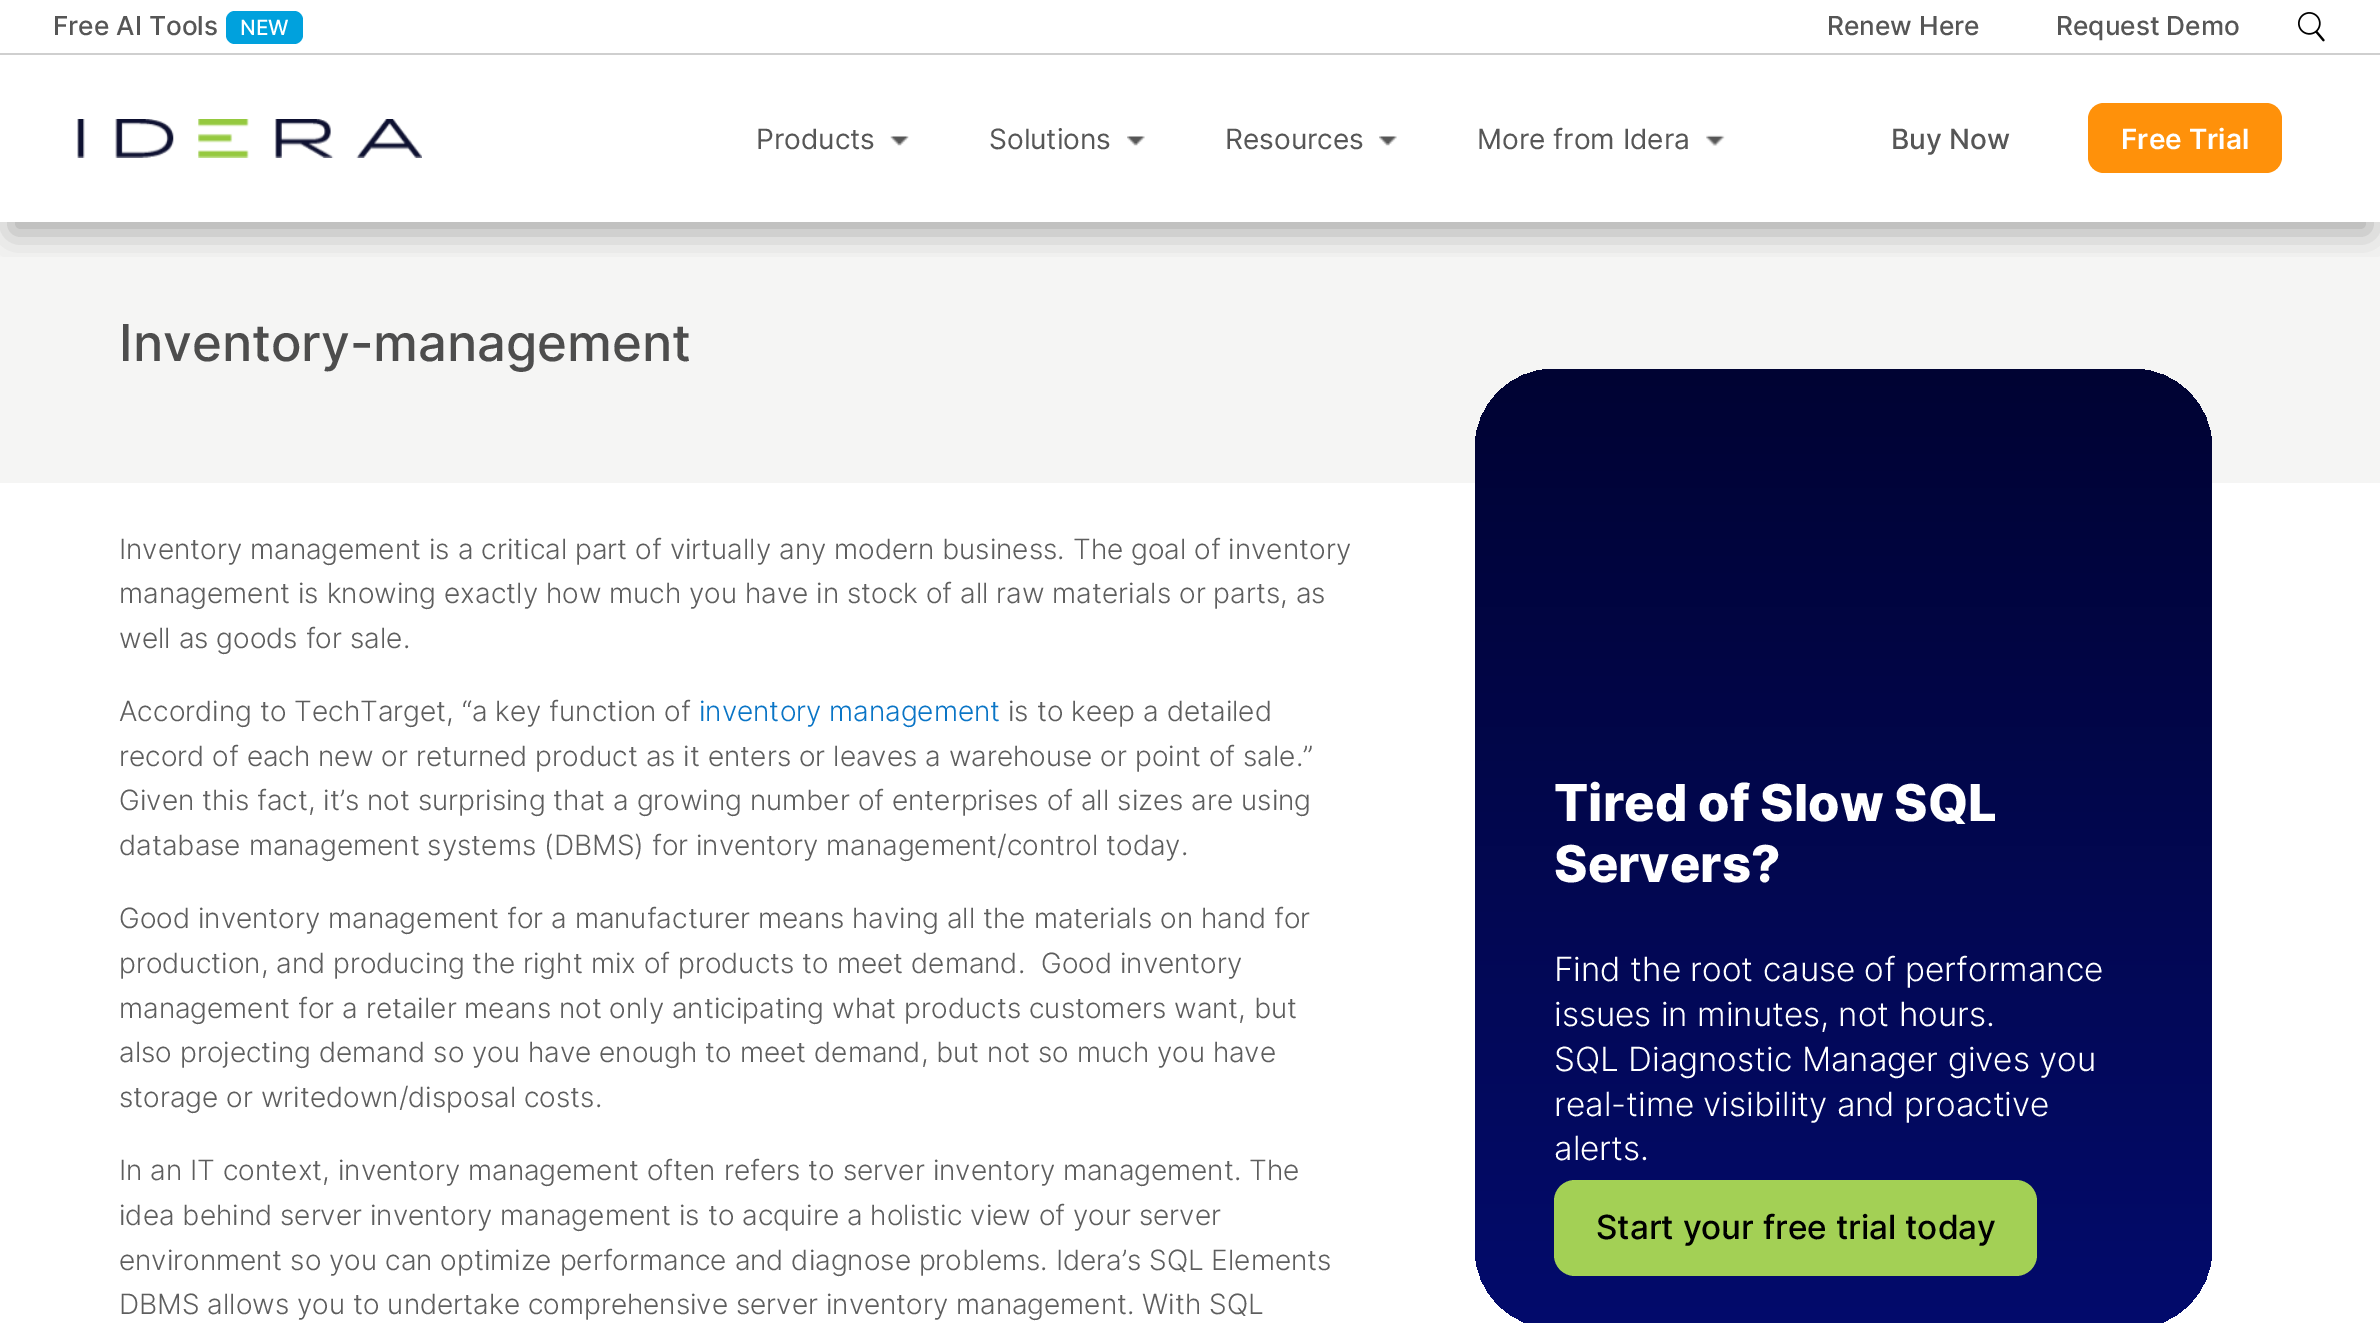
%!PS-Adobe-3.0
%%BoundingBox: 0 0 2380 1323
%%LanguageLevel: 3
%%Pages: 1
%%EndComments
%%BeginProlog
/setalpha { dup .setfillconstantalpha .setstrokeconstantalpha } def
/rrect { 5 dict begin { /r /h /w /y /x } { exch def } forall
  x r add y moveto x w add y 2 copy h add r arct x w add y h add x 1 index r arct
  x y h add x y r arct x y 2 copy exch w add exch r arct closepath end } def
/softshadow { 12 dict begin { /a /b /q /h /w /y /x } { exch def } forall gsave /was 0 def
  9 -2 -9 { dup b mul 4 div /e exch def 1 sub .425 mul 2.718 exch exp 1 add a .99 .min exch div /now exch def
    1 1 now sub 1 was sub div sub setalpha /was now def
    w h .min e 2 mul add 0 gt { x e sub y e sub w e 2 mul add h e 2 mul add
      q e add b .6 mul add w h .min 2 div e add .min 0 .max rrect fill } if } for grestore end } def
/drawimage { 5 dict begin { /h /w /y /x /name } { exch def } forall
  gsave x y translate w h scale
  w h 8 [w 0 0 h 0 0] name (r) file false 3 colorimage grestore end } def
%%EndProlog
%%BeginSetup
<< /PageSize [2380 1323] /PageUsesTransparency true >> setpagedevice
%%EndSetup
%%Page: 1 1
0 .pushpdf14devicefilter
0 1323 translate 1 -1 scale
4 setmiterlimit
1 setgray
0 0 2380 1323 rectfill
0 0.631 0.867 setrgbcolor
226 11 77 33 9 rrect fill
(images/1.raw) 2298 12 27 30 drawimage
0.961 0.961 0.957 setrgbcolor
0 222 2380 261 rectfill
gsave
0 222 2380 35 rectclip
0 setgray
11 84 2359 149 0 16 0.3 softshadow
grestore
0.812 setgray
0 53 2380 2 rectfill
(images/2.raw) 77 119 345 39 drawimage
(images/3.raw) 890 136 19 10 drawimage
(images/4.raw) 1127 136 18 10 drawimage
(images/5.raw) 1379 136 18 10 drawimage
(images/6.raw) 1706 135 19 11 drawimage
1 0.569 0.039 setrgbcolor
2088 103 194 70 16 rrect fill
gsave 1475 369 737 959 79 rrect clip newpath
<< /ShadingType 2 /ColorSpace /DeviceRGB /Coords [1844 369 1844 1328] /Extend [true true] /Function << /FunctionType 2 /Domain [0 1] /C0 [0 0.012 0.2] /C1 [0.012 0.043 0.424] /N 1 >> >> shfill grestore
0.639 0.816 0.333 setrgbcolor
1554 1180 483 96 21 rrect fill
/Inter-Medium [26.25 0 0 -26.25 0 0] selectfont
0.337 setgray
53 35 moveto (Free AI Tools) show
/Inter-Medium [21 0 0 -21 0 0] selectfont
1 setgray
240 35 moveto (NEW) show
/Inter-Medium [26.25 0 0 -26.25 0 0] selectfont
0.337 setgray
1827 35 moveto (Renew Here) show
2056 35 moveto (Request Demo) show
/Inter-Regular [28 0 0 -28 0 0] selectfont
756 149 moveto (Products) show
989 149 moveto (Solutions) show
1225 149 moveto (Resources) show
1477 149 moveto (More from Idera) show
/Inter-Medium [28 0 0 -28 0 0] selectfont
1891 149 moveto (Buy Now) show
/Inter-SemiBold [28 0 0 -28 0 0] selectfont
1 setgray
2121 149 moveto (Free Trial) show
/Inter-Medium [50.75 0 0 -50.75 0 0] selectfont
0.302 setgray
119 361 moveto (Inventory-management) show
/Inter-Light [28 0 0 -28 0 0] selectfont
0.369 setgray
119 559 moveto (Inventory management is a critical part of virtually any modern business. The goal of inventory) show
119 603 moveto (management is knowing exactly how much you have in stock of all raw materials or parts, as) show
119 648 moveto (well as goods for sale.) show
119 721 moveto (According to TechTarget, “a key function of) show
0.039 0.459 0.776 setrgbcolor
699 721 moveto (inventory management) show
0.369 setgray
1008 721 moveto (is to keep a detailed) show
119 766 moveto (record of each new or returned product as it enters or leaves a warehouse or point of sale.”) show
119 810 moveto (Given this fact, it’s not surprising that a growing number of enterprises of all sizes are using) show
119 855 moveto (database management systems \(DBMS\) for inventory management/control today.) show
119 928 moveto (Good inventory management for a manufacturer means having all the materials on hand for) show
119 973 moveto (production, and producing the right mix of products to meet demand.  Good inventory) show
119 1018 moveto (management for a retailer means not only anticipating what products customers want, but) show
119 1062 moveto (also projecting demand so you have enough to meet demand, but not so much you have) show
119 1107 moveto (storage or writedown/disposal costs.) show
119 1180 moveto (In an IT context, inventory management often refers to server inventory management. The) show
119 1225 moveto (idea behind server inventory management is to acquire a holistic view of your server) show
119 1270 moveto (environment so you can optimize performance and diagnose problems. Idera’s SQL Elements) show
119 1314 moveto (DBMS allows you to undertake comprehensive server inventory management. With SQL) show
/Inter-ExtraBold [50.75 0 0 -50.75 0 0] selectfont
1 setgray
1554 821 moveto (Tired of Slow SQL) show
1554 882 moveto (Servers?) show
/Inter-Light [33.25 0 0 -33.25 0 0] selectfont
1554 981 moveto (Find the root cause of performance) show
1554 1026 moveto (issues in minutes, not hours.) show
1554 1071 moveto (SQL Diagnostic Manager gives you) show
1554 1116 moveto (real-time visibility and proactive) show
1554 1160 moveto (alerts.) show
/Inter-Medium [33.25 0 0 -33.25 0 0] selectfont
0 setgray
1596 1239 moveto (Start your free trial today) show
.poppdf14devicefilter showpage
%%EOF
